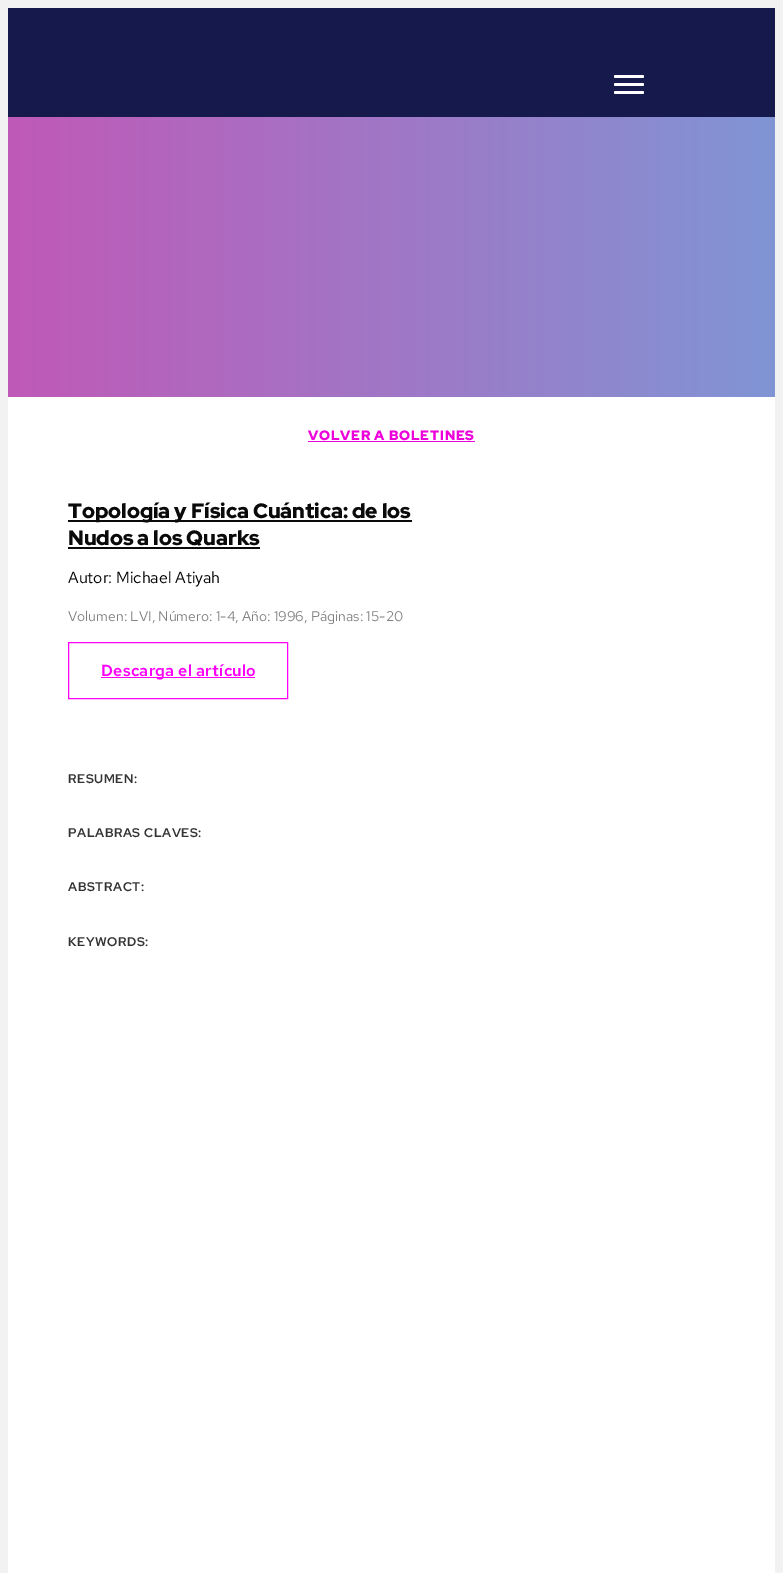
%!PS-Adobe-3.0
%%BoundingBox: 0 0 783 1573
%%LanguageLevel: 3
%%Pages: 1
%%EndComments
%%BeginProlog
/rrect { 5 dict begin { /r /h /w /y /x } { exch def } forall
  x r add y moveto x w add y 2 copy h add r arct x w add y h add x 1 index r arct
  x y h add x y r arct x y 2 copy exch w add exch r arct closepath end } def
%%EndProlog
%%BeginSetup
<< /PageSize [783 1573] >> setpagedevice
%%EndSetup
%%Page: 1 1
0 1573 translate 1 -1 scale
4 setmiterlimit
0.949 setgray
0 0 783 1573 rectfill
0.082 0.098 0.298 setrgbcolor
8 8 767 109 rectfill
1 setgray
614 83 30 3 1.5 rrect fill
614 75 30 3 1.5 rrect fill
614 91 30 3 1.5 rrect fill
8 397 767 1176 rectfill
gsave newpath 8 117 moveto 775 117 lineto 775 397 lineto 8 397 lineto closepath clip newpath
<< /ShadingType 2 /ColorSpace /DeviceRGB /Coords [8 257 775 257] /Extend [true true] /Function << /FunctionType 2 /Domain [0 1] /C0 [0.753 0.349 0.718] /C1 [0.502 0.584 0.835] /N 1 >> >> shfill grestore
0.929 0 0.851 setrgbcolor
308 441 167 1 rectfill
0.039 setgray
68 520 344 2 rectfill
68 547 192 2 rectfill
0.988 0 0.973 setrgbcolor
68.5 642.5 219 56 rectstroke
101 677 154 1 rectfill
/RedHatDisplay-Black [13.6 0 0 -13.6 0 0] selectfont
0.929 0 0.851 setrgbcolor
308 440 moveto 0.75 0 (VOLVER A BOLETINES) ashow
/RedHatDisplay-Black [20.75 0 0 -20.75 0 0] selectfont
0.039 setgray
68 518 moveto (Topología y Física Cuántica: de los) show
68 545 moveto (Nudos a los Quarks) show
/RedHatText-Regular [16 0 0 -16 0 0] selectfont
0 setgray
68 583 moveto (Autor: Michael Atiyah) show
/RedHatText-Regular [14 0 0 -14 0 0] selectfont
0.502 setgray
68 621 moveto (Volumen: LVI, Número: 1-4, Año: 1996, Páginas: 15-20) show
/RedHatText-SemiBold [16 0 0 -16 0 0] selectfont
0.988 0 0.973 setrgbcolor
101 676 moveto 0.25 0 (Descarga el artículo) ashow
/RedHatDisplay-Bold [12.6 0 0 -12.6 0 0] selectfont
0.2 setgray
68 783 moveto 0.6 0 (RESUMEN:) ashow
68 837 moveto 0.6 0 (PALABRAS CLAVES:) ashow
68 891 moveto 0.6 0 (ABSTRACT:) ashow
68 946 moveto 0.6 0 (KEYWORDS:) ashow
showpage
%%EOF
